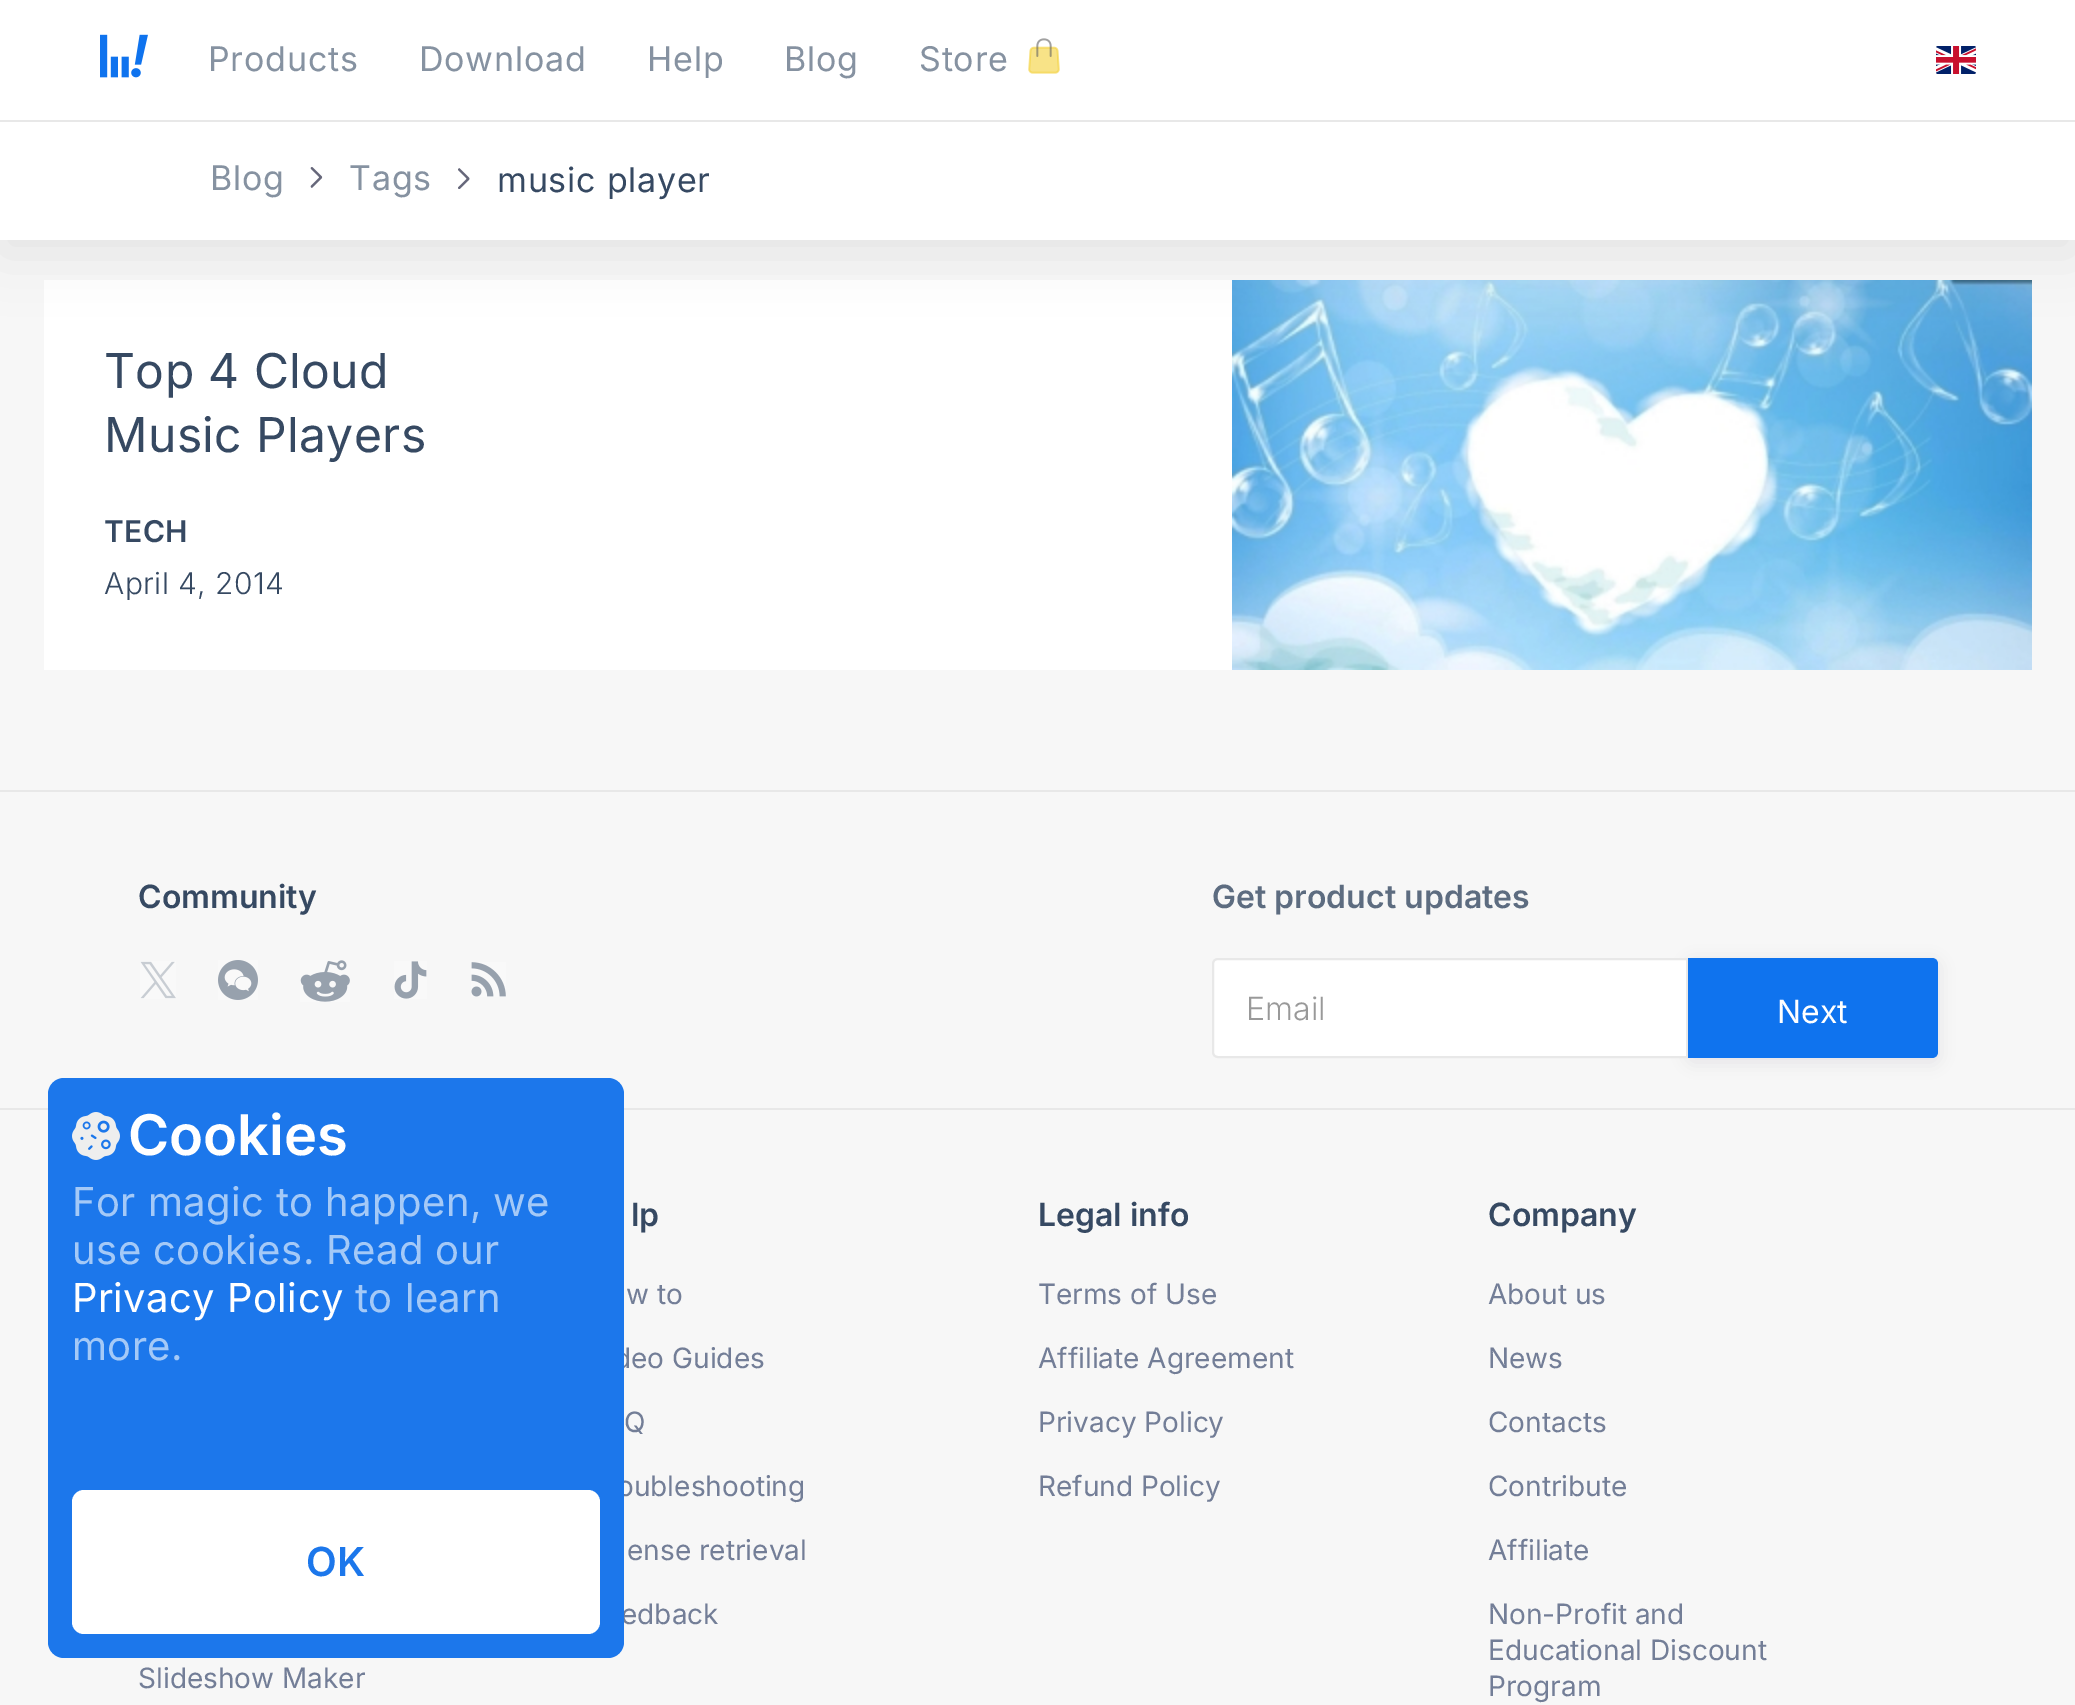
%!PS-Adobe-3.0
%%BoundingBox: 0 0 2075 1705
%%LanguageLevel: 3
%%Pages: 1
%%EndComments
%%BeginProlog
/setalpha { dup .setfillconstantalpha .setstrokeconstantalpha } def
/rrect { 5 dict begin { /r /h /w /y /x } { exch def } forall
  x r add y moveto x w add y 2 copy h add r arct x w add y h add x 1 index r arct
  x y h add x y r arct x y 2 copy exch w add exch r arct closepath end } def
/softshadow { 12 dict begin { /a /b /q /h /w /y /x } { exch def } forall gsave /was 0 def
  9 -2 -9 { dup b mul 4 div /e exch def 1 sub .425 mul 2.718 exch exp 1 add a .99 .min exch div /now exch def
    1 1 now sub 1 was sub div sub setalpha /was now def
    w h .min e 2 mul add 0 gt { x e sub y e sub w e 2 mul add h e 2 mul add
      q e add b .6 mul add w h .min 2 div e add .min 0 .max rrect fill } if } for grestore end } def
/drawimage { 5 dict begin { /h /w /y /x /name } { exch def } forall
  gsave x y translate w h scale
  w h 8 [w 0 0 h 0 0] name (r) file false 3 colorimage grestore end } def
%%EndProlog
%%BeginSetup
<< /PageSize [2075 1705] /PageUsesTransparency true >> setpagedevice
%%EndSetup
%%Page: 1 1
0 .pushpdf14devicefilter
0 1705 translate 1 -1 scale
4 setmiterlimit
0.969 setgray
0 0 2075 1705 rectfill
1 setgray
44 280 1188 390 rectfill
(images/6.raw) 1232 280 800 390 drawimage
0 setgray
0 134 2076 120 0 28 0.07 softshadow
1 setgray
0 0 2075 120 rectfill
(images/1.raw) 100 34 48 44 drawimage
(images/2.raw) 1028 38 32 36 drawimage
(images/3.raw) 1936 46 40 28 drawimage
0 122 2075 118 rectfill
0.91 setgray
0 120 2075 2 rectfill
(images/4.raw) 310 167 13 21 drawimage
(images/5.raw) 458 168 12 21 drawimage
0 790 2075 2 rectfill
0 1108 2075 2 rectfill
(images/7.raw) 140 961 36 38 drawimage
(images/8.raw) 218 960 40 40 drawimage
(images/9.raw) 300 960 50 42 drawimage
(images/10.raw) 394 961 33 38 drawimage
(images/11.raw) 471 962 35 35 drawimage
0.102 0 0.137 setrgbcolor
1688 962 250 100 6 8 0.08 softshadow
1 setgray
newpath 1218 959 moveto 1687 959 lineto 1687 1057 lineto 1218 1057 lineto 1215 1057 1213 1055 1213 1052 curveto 1213 964 lineto 1213 961 1215 959 1218 959 curveto closepath gsave fill grestore
0.91 setgray
2 setlinewidth
stroke
0.059 0.451 0.933 setrgbcolor
newpath 1688 958 moveto 1932 958 lineto 1935.5 958 1938 960.5 1938 964 curveto 1938 1052 lineto 1938 1055.5 1935.5 1058 1932 1058 curveto 1688 1058 lineto closepath fill
/Inter-Regular [34 0 0 -34 0 0] selectfont
0.525 0.573 0.631 setrgbcolor
208 71 moveto 0.75 0 (Products) ashow
419 71 moveto 0.75 0 (Download) ashow
647 71 moveto 0.75 0 (Help) ashow
784 71 moveto 0.75 0 (Blog) ashow
919 71 moveto 0.75 0 (Store) ashow
210 190 moveto 0.75 0 (Blog) ashow
349 190 moveto 0.75 0 (Tags) ashow
0.212 0.286 0.384 setrgbcolor
497 192 moveto 0.75 0 (music player) ashow
/Inter-Regular [48 0 0 -48 0 0] selectfont
104 388 moveto 0.4 0 (Top 4 Cloud) ashow
104 452 moveto 0.4 0 (Music Players) ashow
/Inter-SemiBold [30 0 0 -30 0 0] selectfont
104 542 moveto 0.4 0 (TECH) ashow
/Inter-Light [30 0 0 -30 0 0] selectfont
104 594 moveto 0.4 0 (April 4, 2014) ashow
/Inter-SemiBold [32 0 0 -32 0 0] selectfont
138 908 moveto (Community) show
0.365 0.424 0.502 setrgbcolor
1212 908 moveto (Get product updates) show
/Inter-Light [32 0 0 -32 0 0] selectfont
0.6 setgray
1246 1020 moveto (Email) show
/Inter-Regular [32 0 0 -32 0 0] selectfont
1 setgray
1777 1023 moveto (Next) show
/Inter-Regular [28 0 0 -28 0 0] selectfont
0.451 0.494 0.592 setrgbcolor
138 1688 moveto (Slideshow Maker) show
/Inter-SemiBold [32 0 0 -32 0 0] selectfont
0.212 0.286 0.384 setrgbcolor
631 1226 moveto (lp) show
/Inter-Regular [28 0 0 -28 0 0] selectfont
0.451 0.494 0.592 setrgbcolor
626 1304 moveto (w to) show
614 1368 moveto (deo Guides) show
624 1432 moveto (Q) show
617 1496 moveto (oubleshooting) show
627 1560 moveto (ense retrieval) show
621 1624 moveto (edback) show
/Inter-SemiBold [32 0 0 -32 0 0] selectfont
0.212 0.286 0.384 setrgbcolor
1038 1226 moveto (Legal info) show
/Inter-Regular [28 0 0 -28 0 0] selectfont
0.451 0.494 0.592 setrgbcolor
1038 1304 moveto (Terms of Use) show
1038 1368 moveto (Affiliate Agreement) show
1038 1432 moveto (Privacy Policy) show
1038 1496 moveto (Refund Policy) show
/Inter-SemiBold [32 0 0 -32 0 0] selectfont
0.212 0.286 0.384 setrgbcolor
1488 1226 moveto (Company) show
/Inter-Regular [28 0 0 -28 0 0] selectfont
0.451 0.494 0.592 setrgbcolor
1488 1304 moveto (About us) show
1488 1368 moveto (News) show
1488 1432 moveto (Contacts) show
1488 1496 moveto (Contribute) show
1488 1560 moveto (Affiliate) show
1488 1624 moveto (Non-Profit and) show
1488 1660 moveto (Educational Discount) show
1488 1696 moveto (Program) show
0.11 0.467 0.922 setrgbcolor
48 1078 576 580 16 rrect fill
(images/12.raw) 72 1112 48 48 drawimage
/Inter-SemiBold [56 0 0 -56 0 0] selectfont
1 setgray
128 1155 moveto (Cookies) show
/Inter-Regular [40 0 0 -40 0 0] selectfont
0.643 0.788 0.969 setrgbcolor
72 1216 moveto 0.4 0 (For magic to happen, we) ashow
72 1264 moveto 0.4 0 (use cookies. Read our) ashow
1 setgray
72 1312 moveto 0.4 0 (Privacy Policy) ashow
0.643 0.788 0.969 setrgbcolor
355 1312 moveto 0.4 0 (to learn) ashow
72 1360 moveto 0.4 0 (more.) ashow
1 setgray
72 1490 528 144 12 rrect fill
/Inter-SemiBold [40 0 0 -40 0 0] selectfont
0.11 0.467 0.922 setrgbcolor
306 1576 moveto 0.4 0 (OK) ashow
.poppdf14devicefilter showpage
%%EOF
